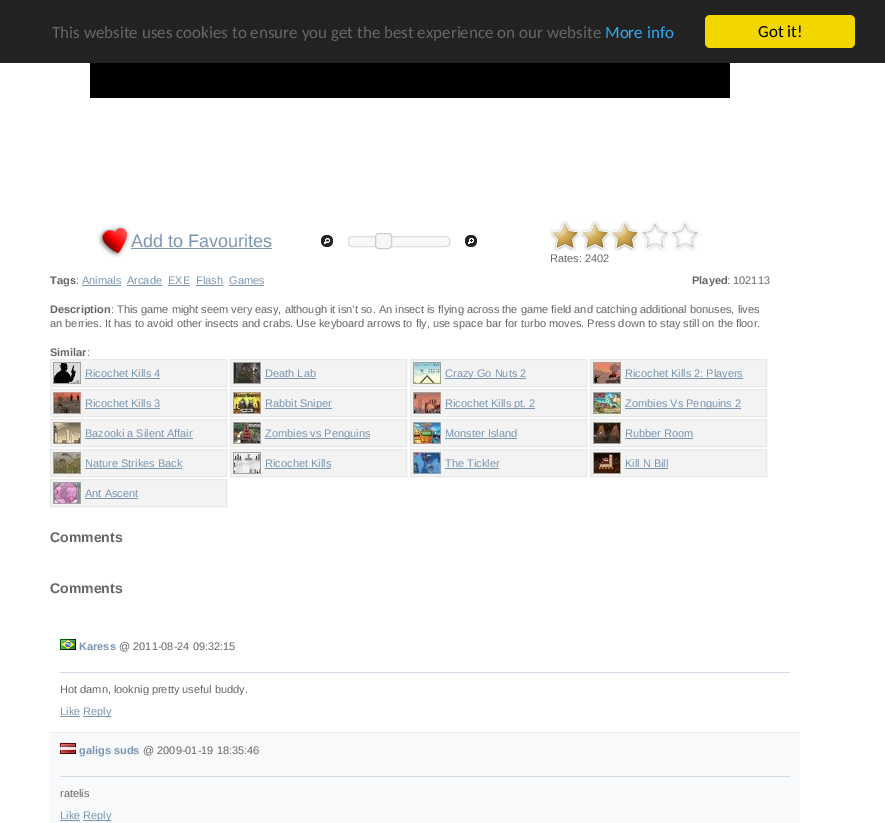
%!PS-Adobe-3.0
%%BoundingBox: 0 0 885 823
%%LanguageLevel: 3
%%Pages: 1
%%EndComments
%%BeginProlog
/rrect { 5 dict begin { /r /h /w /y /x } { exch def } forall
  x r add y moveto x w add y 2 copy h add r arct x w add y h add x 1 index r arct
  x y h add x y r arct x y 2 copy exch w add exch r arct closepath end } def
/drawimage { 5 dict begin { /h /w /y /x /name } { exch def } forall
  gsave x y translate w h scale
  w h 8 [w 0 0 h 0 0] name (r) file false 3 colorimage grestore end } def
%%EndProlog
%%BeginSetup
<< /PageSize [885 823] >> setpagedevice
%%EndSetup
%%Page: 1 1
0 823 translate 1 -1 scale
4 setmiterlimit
1 setgray
0 0 885 823 rectfill
0.133 setgray
0 0 885 63 rectfill
0.945 0.839 0 setrgbcolor
705 15 150 33 5 rrect fill
0 setgray
90 63 640 35 rectfill
(images/1.raw) 98 225 32 33 drawimage
0.482 0.588 0.694 setrgbcolor
131 248 141 1 rectfill
(images/2.raw) 321 235 12 12 drawimage
0.973 setgray
348 237 102 10 rectfill
0.867 setgray
348.5 236.5 101 10 3.5 rrect stroke
0.965 setgray
375 233 17 16 4 rrect fill
0.969 setgray
375 246 17 1 rectfill
0.8 setgray
375.5 233.5 16 15 3.5 rrect stroke
(images/3.raw) 465 235 12 12 drawimage
(images/4.raw) 637 221 63 30 drawimage
(images/5.raw) 550 221 87 30 drawimage
0.482 0.588 0.694 setrgbcolor
82 285 39 1 rectfill
127 285 35 1 rectfill
168 285 22 1 rectfill
196 285 27 1 rectfill
229 285 35 1 rectfill
0.953 setgray
51 360 175 26 rectfill
(images/6.raw) 53 362 28 22 drawimage
0.91 setgray
50.5 359.5 176 27 rectstroke
0.482 0.588 0.694 setrgbcolor
85 378 75 1 rectfill
0.953 setgray
231 360 175 26 rectfill
(images/7.raw) 233 362 28 22 drawimage
0.91 setgray
230.5 359.5 176 27 rectstroke
0.482 0.588 0.694 setrgbcolor
265 378 51 1 rectfill
0.953 setgray
411 360 175 26 rectfill
(images/8.raw) 413 362 28 22 drawimage
0.91 setgray
410.5 359.5 176 27 rectstroke
0.482 0.588 0.694 setrgbcolor
445 378 81 1 rectfill
0.953 setgray
591 360 175 26 rectfill
(images/9.raw) 593 362 28 22 drawimage
0.91 setgray
590.5 359.5 176 27 rectstroke
0.482 0.588 0.694 setrgbcolor
625 378 118 1 rectfill
0.953 setgray
51 390 175 26 rectfill
(images/10.raw) 53 392 28 22 drawimage
0.91 setgray
50.5 389.5 176 27 rectstroke
0.482 0.588 0.694 setrgbcolor
85 408 75 1 rectfill
0.953 setgray
231 390 175 26 rectfill
(images/11.raw) 233 392 28 22 drawimage
0.91 setgray
230.5 389.5 176 27 rectstroke
0.482 0.588 0.694 setrgbcolor
265 408 67 1 rectfill
0.953 setgray
411 390 175 26 rectfill
(images/12.raw) 413 392 28 22 drawimage
0.91 setgray
410.5 389.5 176 27 rectstroke
0.482 0.588 0.694 setrgbcolor
445 408 90 1 rectfill
0.953 setgray
591 390 175 26 rectfill
(images/13.raw) 593 392 28 22 drawimage
0.91 setgray
590.5 389.5 176 27 rectstroke
0.482 0.588 0.694 setrgbcolor
625 408 116 1 rectfill
0.953 setgray
51 420 175 26 rectfill
(images/14.raw) 53 422 28 22 drawimage
0.91 setgray
50.5 419.5 176 27 rectstroke
0.482 0.588 0.694 setrgbcolor
85 438 108 1 rectfill
0.953 setgray
231 420 175 26 rectfill
(images/15.raw) 233 422 28 22 drawimage
0.91 setgray
230.5 419.5 176 27 rectstroke
0.482 0.588 0.694 setrgbcolor
265 438 105 1 rectfill
0.953 setgray
411 420 175 26 rectfill
(images/16.raw) 413 422 28 22 drawimage
0.91 setgray
410.5 419.5 176 27 rectstroke
0.482 0.588 0.694 setrgbcolor
445 438 72 1 rectfill
0.953 setgray
591 420 175 26 rectfill
(images/17.raw) 593 422 28 22 drawimage
0.91 setgray
590.5 419.5 176 27 rectstroke
0.482 0.588 0.694 setrgbcolor
625 438 68 1 rectfill
0.953 setgray
51 450 175 26 rectfill
(images/18.raw) 53 452 28 22 drawimage
0.91 setgray
50.5 449.5 176 27 rectstroke
0.482 0.588 0.694 setrgbcolor
85 468 97 1 rectfill
0.953 setgray
231 450 175 26 rectfill
(images/19.raw) 233 452 28 22 drawimage
0.91 setgray
230.5 449.5 176 27 rectstroke
0.482 0.588 0.694 setrgbcolor
265 468 66 1 rectfill
0.953 setgray
411 450 175 26 rectfill
(images/20.raw) 413 452 28 22 drawimage
0.91 setgray
410.5 449.5 176 27 rectstroke
0.482 0.588 0.694 setrgbcolor
445 468 54 1 rectfill
0.953 setgray
591 450 175 26 rectfill
(images/21.raw) 593 452 28 22 drawimage
0.91 setgray
590.5 449.5 176 27 rectstroke
0.482 0.588 0.694 setrgbcolor
625 468 43 1 rectfill
0.953 setgray
51 480 175 26 rectfill
(images/22.raw) 53 482 28 22 drawimage
0.91 setgray
50.5 479.5 176 27 rectstroke
0.482 0.588 0.694 setrgbcolor
85 498 53 1 rectfill
(images/23.raw) 60 639 16 11 drawimage
0.816 0.859 0.902 setrgbcolor
60 672 730 1 rectfill
0.482 0.588 0.694 setrgbcolor
60 716 20 1 rectfill
83 716 28 1 rectfill
0.973 0.976 0.984 setrgbcolor
50 733 750 90 rectfill
0.914 0.933 0.953 setrgbcolor
50 732 750 1 rectfill
(images/24.raw) 60 743 16 11 drawimage
0.816 0.859 0.902 setrgbcolor
60 776 730 1 rectfill
0.482 0.588 0.694 setrgbcolor
60 820 20 1 rectfill
83 820 28 1 rectfill
/Carlito-Regular [17 0 0 -17 0 0] selectfont
0.4 setgray
52 38 moveto (This website uses cookies to ensure you get the best experience on our website) show
0.192 0.659 0.941 setrgbcolor
605 38 moveto (More info) show
0 setgray
758 37 moveto (Got it!) show
/LiberationSans-Regular [18 0 0 -18 0 0] selectfont
0.482 0.588 0.694 setrgbcolor
131 247 moveto (Add to Favourites) show
/LiberationSans-Regular [11 0 0 -11 0 0] selectfont
0.4 setgray
550 262 moveto (Rates: 2402) show
/LiberationSans-Bold [11 0 0 -11 0 0] selectfont
50 284 moveto (Tags) show
/LiberationSans-Regular [11 0 0 -11 0 0] selectfont
76 284 moveto (:) show
0.482 0.588 0.694 setrgbcolor
82 284 moveto (Animals) show
127 284 moveto (Arcade) show
168 284 moveto (EXE) show
196 284 moveto (Flash) show
229 284 moveto (Games) show
/LiberationSans-Bold [11 0 0 -11 0 0] selectfont
0.4 setgray
692 284 moveto (Played) show
/LiberationSans-Regular [11 0 0 -11 0 0] selectfont
727 284 moveto (: 102113) show
/LiberationSans-Bold [11 0 0 -11 0 0] selectfont
50 313 moveto (Description) show
/LiberationSans-Regular [11 0 0 -11 0 0] selectfont
111 313 moveto (: This game might seem very easy, although it isn’t so. An insect is flying across the game field and catching additional bonuses, lives) show
50 327 moveto (an berries. It has to avoid other insects and crabs. Use keyboard arrows to fly, use space bar for turbo moves. Press down to stay still on the floor.) show
/LiberationSans-Bold [11 0 0 -11 0 0] selectfont
50 356 moveto (Similar) show
/LiberationSans-Regular [11 0 0 -11 0 0] selectfont
87 356 moveto (:) show
0.482 0.588 0.694 setrgbcolor
85 377 moveto (Ricochet Kills 4) show
265 377 moveto (Death Lab) show
445 377 moveto (Crazy Go Nuts 2) show
625 377 moveto (Ricochet Kills 2: Players) show
85 407 moveto (Ricochet Kills 3) show
265 407 moveto (Rabbit Sniper) show
445 407 moveto (Ricochet Kills pt. 2) show
625 407 moveto (Zombies Vs Penguins 2) show
85 437 moveto (Bazooki a Silent Affair) show
265 437 moveto (Zombies vs Penguins) show
445 437 moveto (Monster Island) show
625 437 moveto (Rubber Room) show
85 467 moveto (Nature Strikes Back) show
265 467 moveto (Ricochet Kills) show
445 467 moveto (The Tickler) show
625 467 moveto (Kill N Bill) show
85 497 moveto (Ant Ascent) show
/LiberationSans-Bold [14 0 0 -14 0 0] selectfont
0.4 setgray
50 542 moveto (Comments) show
50 593 moveto (Comments) show
/LiberationSans-Bold [11 0 0 -11 0 0] selectfont
0.482 0.588 0.694 setrgbcolor
79 650 moveto (Karess) show
/LiberationSans-Regular [11 0 0 -11 0 0] selectfont
0.4 setgray
119 650 moveto (@ 2011-08-24 09:32:15) show
gsave
60 673 730 22 rectclip
60 693 moveto (Hot damn, looknig pretty useful buddy.) show
grestore
0.482 0.588 0.694 setrgbcolor
60 715 moveto (Like) show
83 715 moveto (Reply) show
/LiberationSans-Bold [11 0 0 -11 0 0] selectfont
79 754 moveto (galigs suds) show
/LiberationSans-Regular [11 0 0 -11 0 0] selectfont
0.4 setgray
143 754 moveto (@ 2009-01-19 18:35:46) show
60 797 moveto (ratelis) show
0.482 0.588 0.694 setrgbcolor
60 819 moveto (Like) show
83 819 moveto (Reply) show
showpage
%%EOF
